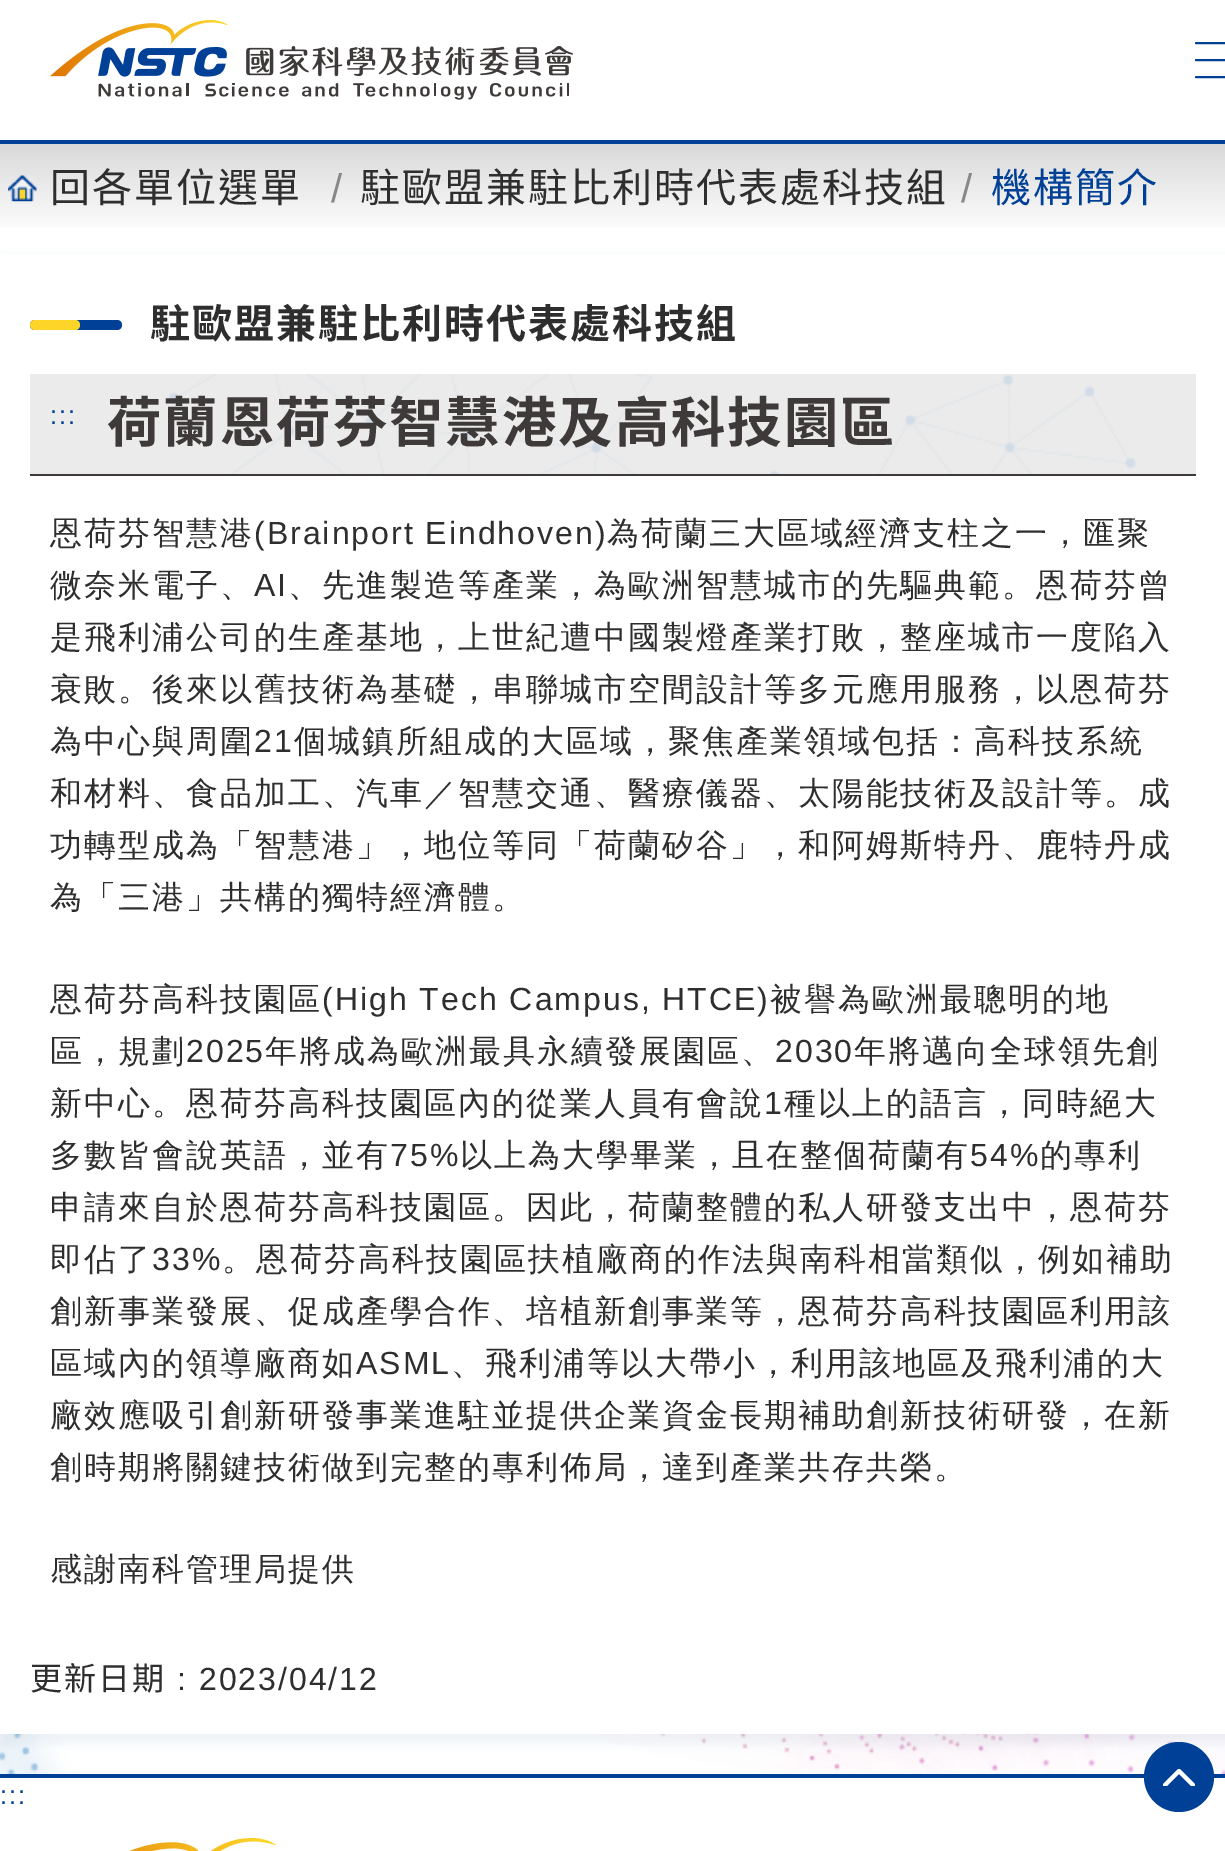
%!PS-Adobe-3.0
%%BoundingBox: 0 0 1225 1851
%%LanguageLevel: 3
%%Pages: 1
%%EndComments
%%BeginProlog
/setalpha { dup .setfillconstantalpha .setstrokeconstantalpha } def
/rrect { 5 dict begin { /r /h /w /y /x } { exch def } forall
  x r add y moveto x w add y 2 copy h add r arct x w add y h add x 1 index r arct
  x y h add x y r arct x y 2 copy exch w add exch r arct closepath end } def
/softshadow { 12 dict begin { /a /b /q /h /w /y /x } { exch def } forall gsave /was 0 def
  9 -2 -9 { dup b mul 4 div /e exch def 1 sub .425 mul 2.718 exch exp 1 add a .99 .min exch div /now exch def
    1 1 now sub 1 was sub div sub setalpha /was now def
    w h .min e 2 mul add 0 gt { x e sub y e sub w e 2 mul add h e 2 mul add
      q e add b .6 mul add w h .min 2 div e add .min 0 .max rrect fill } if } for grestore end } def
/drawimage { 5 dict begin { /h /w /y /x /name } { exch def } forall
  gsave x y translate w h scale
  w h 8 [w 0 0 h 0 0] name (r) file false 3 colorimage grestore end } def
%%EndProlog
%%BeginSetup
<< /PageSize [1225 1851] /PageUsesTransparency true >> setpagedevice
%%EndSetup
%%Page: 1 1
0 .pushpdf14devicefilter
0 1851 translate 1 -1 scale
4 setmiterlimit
1 setgray
0 0 1225 1851 rectfill
(images/1.raw) 50 20 523 80 drawimage
0 0.251 0.592 setrgbcolor
2 setlinewidth
1 setlinecap
newpath 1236 43 moveto 1196 43 lineto 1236 60 moveto 1196 60 lineto 1196 77 moveto 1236 77 lineto stroke
(images/2.raw) 0 1734 1225 40 drawimage
gsave newpath 0 144 moveto 1225 144 lineto 1225 228 lineto 0 228 lineto closepath clip newpath
<< /ShadingType 2 /ColorSpace /DeviceRGB /Coords [613 144 613 234] /Extend [true true] /Function << /FunctionType 2 /Domain [0 1] /C0 [0.851 0.851 0.851] /C1 [1 1 1] /N 1 >> >> shfill grestore
0 140 1225 4 rectfill
(images/3.raw) 8 175 29 27 drawimage
0.69 0.753 0.812 setrgbcolor
2 256 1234 1488 0 5 0.2 softshadow
1 setgray
0 254 1225 1480 rectfill
0 0.251 0.592 setrgbcolor
newpath 122 325 moveto 122 328 120 330 117 330 curveto 35 330 lineto 32 330 30 328 30 325 curveto 30 322 32 320 35 320 curveto 117 320 lineto 120 320 122 322 122 325 curveto closepath fill
0.992 0.835 0.157 setrgbcolor
newpath 80 325 moveto 80 328 78 330 75 330 curveto 35 330 lineto 32 330 30 328 30 325 curveto 30 322 32 320 35 320 curveto 75 320 lineto 78 320 80 322 80 325 curveto closepath fill
0.922 setgray
30 374 1166 100 rectfill
(images/4.raw) 168 374 968 100 drawimage
0.243 0.227 0.224 setrgbcolor
30 474 1166 2 rectfill
0 0.251 0.592 setrgbcolor
0 1774 1225 4 rectfill
newpath 1179 1777 35 0 360 arc closepath fill
gsave
1162 1768 34 18 rectclip
1 setgray
4 setlinewidth
newpath 1165 1785 moveto 1179 1771 lineto 1193 1785 moveto 1179 1771 lineto stroke
grestore
(images/5.raw) 129 1838 147 13 drawimage
/NotoSansTC-Regular [40 0 0 -40 0 0] selectfont
0.18 setgray
50 202 moveto 2 0 (回各單位選單) ashow
/LiberationSans-Regular [40 0 0 -40 0 0] selectfont
0.533 setgray
331 202 moveto 2 0 (/) ashow
/NotoSansTC-Regular [40 0 0 -40 0 0] selectfont
0.18 setgray
360 202 moveto 2 0 (駐歐盟兼駐比利時代表處科技組) ashow
/LiberationSans-Regular [40 0 0 -40 0 0] selectfont
0.533 setgray
961 202 moveto 2 0 (/) ashow
/NotoSansTC-Regular [40 0 0 -40 0 0] selectfont
0 0.251 0.592 setrgbcolor
991 202 moveto 2 0 (機構簡介) ashow
/NotoSansTC-Bold [40 0 0 -40 0 0] selectfont
0.18 setgray
150 338 moveto 2 0 (駐歐盟兼駐比利時代表處科技組) ashow
/LiberationSans-Regular [26 0 0 -26 0 0] selectfont
0 0.251 0.592 setrgbcolor
50 424 moveto 2 0 (:::) ashow
/NotoSansTC-Bold [54.4 0 0 -54.4 0 0] selectfont
0.243 0.227 0.224 setrgbcolor
107 442 moveto 2 0 (荷蘭恩荷芬智慧港及高科技園區) ashow
/WenQuanYiZenHei-Medium [32 0 0 -32 0 0] selectfont
0.18 setgray
50 544 moveto 2 0 (恩荷芬智慧港) ashow
/LiberationSans-Regular [32 0 0 -32 0 0] selectfont
254 544 moveto 2 0 (\(Brainport Eindhoven\)) ashow
/WenQuanYiZenHei-Medium [32 0 0 -32 0 0] selectfont
607 544 moveto 2 0 (為荷蘭三大區域經濟支柱之一，匯聚) ashow
50 596 moveto 2 0 (微奈米電子、) ashow
/LiberationSans-Regular [32 0 0 -32 0 0] selectfont
254 596 moveto 2 0 (AI) ashow
/WenQuanYiZenHei-Medium [32 0 0 -32 0 0] selectfont
288 596 moveto 2 0 (、先進製造等產業，為歐洲智慧城市的先驅典範。恩荷芬曾) ashow
50 648 moveto 2 0 (是飛利浦公司的生產基地，上世紀遭中國製燈產業打敗，整座城市一度陷入) ashow
50 700 moveto 2 0 (衰敗。後來以舊技術為基礎，串聯城市空間設計等多元應用服務，以恩荷芬) ashow
50 752 moveto 2 0 (為中心與周圍) ashow
/LiberationSans-Regular [32 0 0 -32 0 0] selectfont
254 752 moveto 2 0 (21) ashow
/WenQuanYiZenHei-Medium [32 0 0 -32 0 0] selectfont
294 752 moveto 2 0 (個城鎮所組成的大區域，聚焦產業領域包括：高科技系統) ashow
50 804 moveto 2 0 (和材料、食品加工、汽車／智慧交通、醫療儀器、太陽能技術及設計等。成) ashow
50 856 moveto 2 0 (功轉型成為「智慧港」，地位等同「荷蘭矽谷」，和阿姆斯特丹、鹿特丹成) ashow
50 908 moveto 2 0 (為「三港」共構的獨特經濟體。) ashow
50 1010 moveto 2 0 (恩荷芬高科技園區) ashow
/LiberationSans-Regular [32 0 0 -32 0 0] selectfont
322 1010 moveto 2 0 (\(High Tech Campus, HTCE\)) ashow
/WenQuanYiZenHei-Medium [32 0 0 -32 0 0] selectfont
770 1010 moveto 2 0 (被譽為歐洲最聰明的地) ashow
50 1062 moveto 2 0 (區，規劃) ashow
/LiberationSans-Regular [32 0 0 -32 0 0] selectfont
186 1062 moveto 2 0 (2025) ashow
/WenQuanYiZenHei-Medium [32 0 0 -32 0 0] selectfont
265 1062 moveto 2 0 (年將成為歐洲最具永續發展園區、) ashow
/LiberationSans-Regular [32 0 0 -32 0 0] selectfont
775 1062 moveto 2 0 (2030) ashow
/WenQuanYiZenHei-Medium [32 0 0 -32 0 0] selectfont
854 1062 moveto 2 0 (年將邁向全球領先創) ashow
50 1114 moveto 2 0 (新中心。恩荷芬高科技園區內的從業人員有會說) ashow
/LiberationSans-Regular [32 0 0 -32 0 0] selectfont
764 1114 moveto 2 0 (1) ashow
/WenQuanYiZenHei-Medium [32 0 0 -32 0 0] selectfont
784 1114 moveto 2 0 (種以上的語言，同時絕大) ashow
50 1166 moveto 2 0 (多數皆會說英語，並有) ashow
/LiberationSans-Regular [32 0 0 -32 0 0] selectfont
390 1166 moveto 2 0 (75%) ashow
/WenQuanYiZenHei-Medium [32 0 0 -32 0 0] selectfont
460 1166 moveto 2 0 (以上為大學畢業，且在整個荷蘭有) ashow
/LiberationSans-Regular [32 0 0 -32 0 0] selectfont
970 1166 moveto 2 0 (54%) ashow
/WenQuanYiZenHei-Medium [32 0 0 -32 0 0] selectfont
1040 1166 moveto 2 0 (的專利) ashow
50 1218 moveto 2 0 (申請來自於恩荷芬高科技園區。因此，荷蘭整體的私人研發支出中，恩荷芬) ashow
50 1270 moveto 2 0 (即佔了) ashow
/LiberationSans-Regular [32 0 0 -32 0 0] selectfont
152 1270 moveto 2 0 (33%) ashow
/WenQuanYiZenHei-Medium [32 0 0 -32 0 0] selectfont
222 1270 moveto 2 0 (。恩荷芬高科技園區扶植廠商的作法與南科相當類似，例如補助) ashow
50 1322 moveto 2 0 (創新事業發展、促成產學合作、培植新創事業等，恩荷芬高科技園區利用該) ashow
50 1374 moveto 2 0 (區域內的領導廠商如) ashow
/LiberationSans-Regular [32 0 0 -32 0 0] selectfont
356 1374 moveto 2 0 (ASML) ashow
/WenQuanYiZenHei-Medium [32 0 0 -32 0 0] selectfont
451 1374 moveto 2 0 (、飛利浦等以大帶小，利用該地區及飛利浦的大) ashow
50 1426 moveto 2 0 (廠效應吸引創新研發事業進駐並提供企業資金長期補助創新技術研發，在新) ashow
50 1478 moveto 2 0 (創時期將關鍵技術做到完整的專利佈局，達到產業共存共榮。) ashow
50 1580 moveto 2 0 (感謝南科管理局提供) ashow
/NotoSansTC-Regular [32 0 0 -32 0 0] selectfont
30 1690 moveto 2 0 (更新日期) ashow
/LiberationSans-Regular [32 0 0 -32 0 0] selectfont
177 1690 moveto 2 0 (: 2023/04/12) ashow
/LiberationSans-Regular [26 0 0 -26 0 0] selectfont
0 0.251 0.592 setrgbcolor
0 1804 moveto 2 0 (:::) ashow
.poppdf14devicefilter showpage
%%EOF
